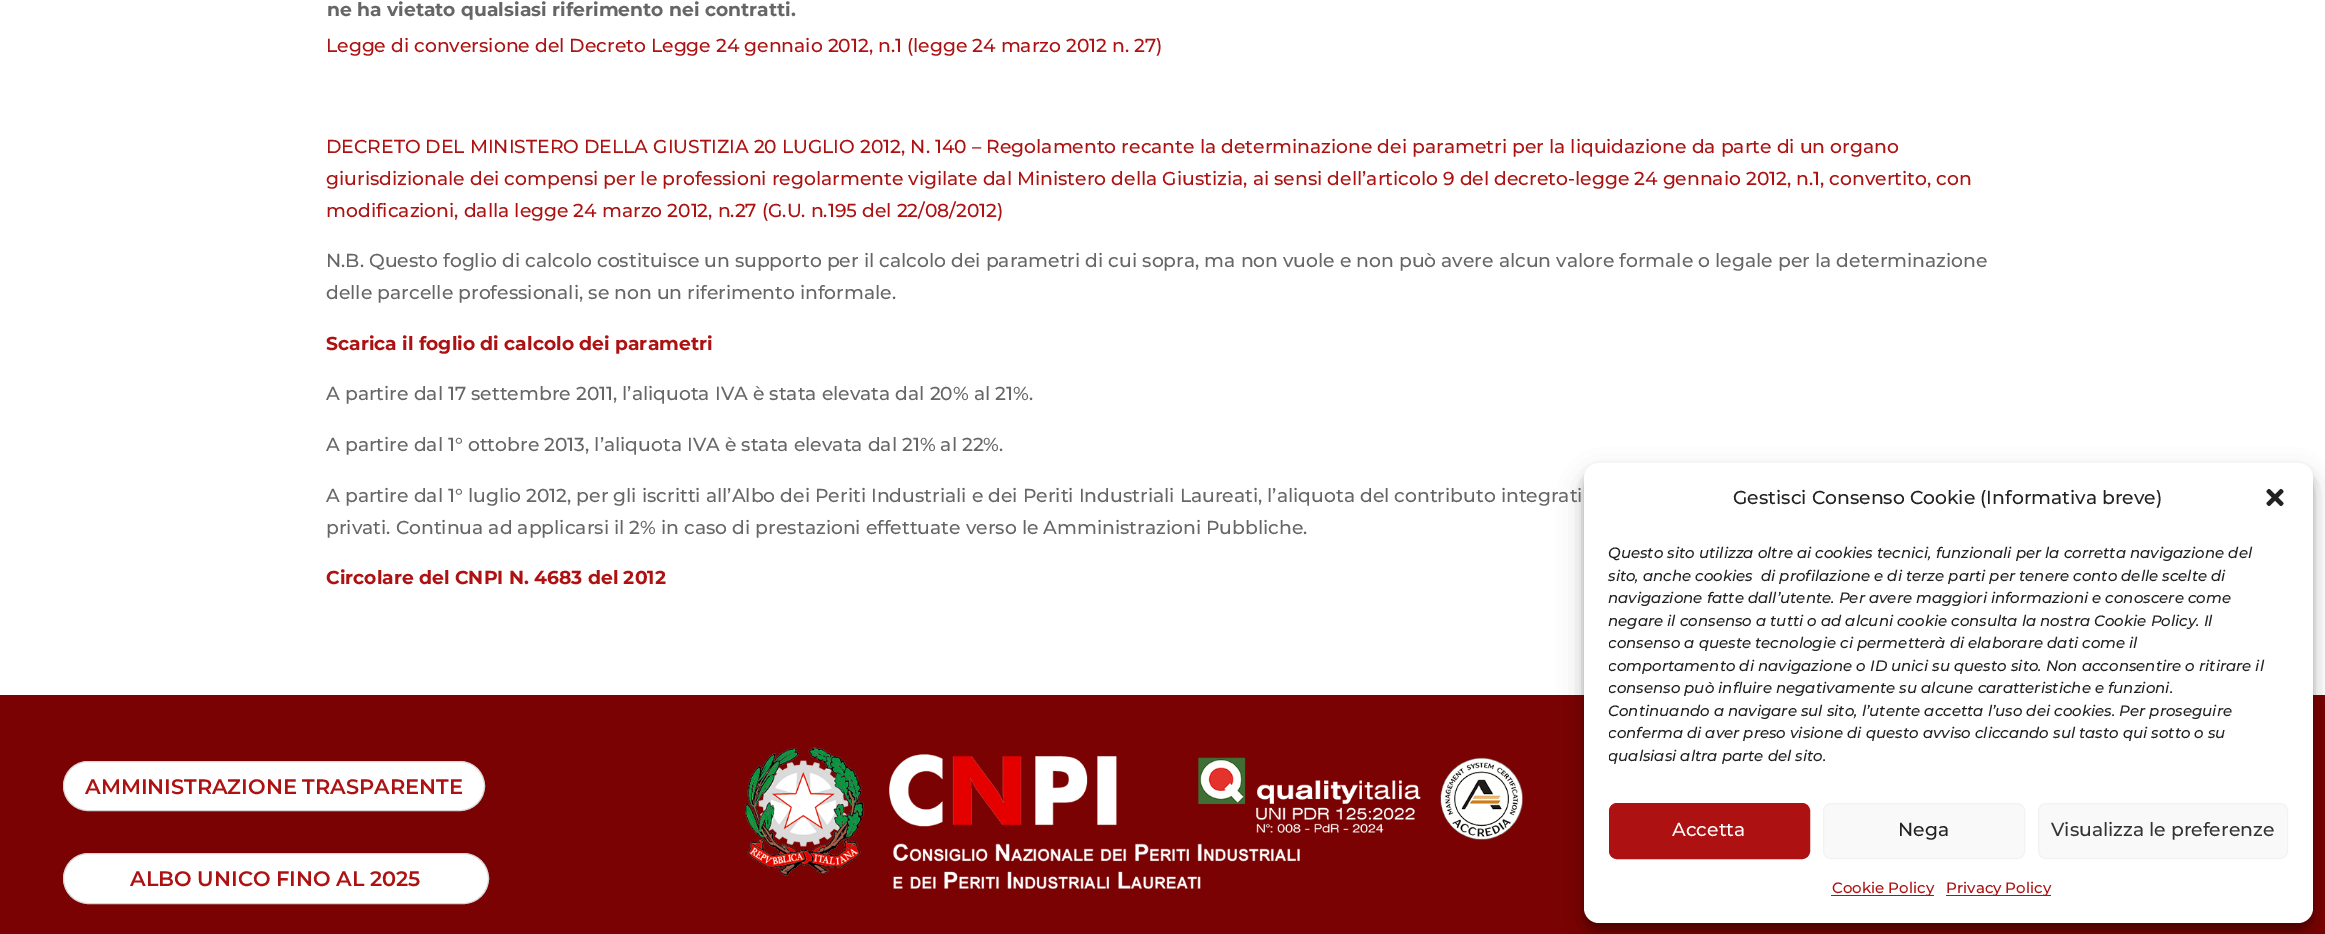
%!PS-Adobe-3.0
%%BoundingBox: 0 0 2325 934
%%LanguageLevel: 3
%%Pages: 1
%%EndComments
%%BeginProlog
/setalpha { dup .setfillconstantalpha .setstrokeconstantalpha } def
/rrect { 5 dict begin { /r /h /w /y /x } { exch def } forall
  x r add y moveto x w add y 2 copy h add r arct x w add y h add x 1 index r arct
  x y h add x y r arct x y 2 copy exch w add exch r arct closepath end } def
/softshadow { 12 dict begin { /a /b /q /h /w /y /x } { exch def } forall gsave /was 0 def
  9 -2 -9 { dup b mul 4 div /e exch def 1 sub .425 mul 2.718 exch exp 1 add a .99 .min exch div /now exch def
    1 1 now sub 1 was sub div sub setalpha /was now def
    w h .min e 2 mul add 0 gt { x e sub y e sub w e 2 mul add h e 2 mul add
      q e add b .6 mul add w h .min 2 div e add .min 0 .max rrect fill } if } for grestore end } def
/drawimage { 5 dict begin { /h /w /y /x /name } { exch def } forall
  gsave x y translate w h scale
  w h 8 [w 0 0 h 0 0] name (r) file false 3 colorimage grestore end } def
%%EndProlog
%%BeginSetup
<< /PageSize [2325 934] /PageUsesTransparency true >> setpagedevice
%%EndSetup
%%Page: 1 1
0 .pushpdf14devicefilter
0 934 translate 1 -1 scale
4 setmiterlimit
1 setgray
0 0 2325 934 rectfill
0.478 0.008 0.008 setrgbcolor
0 695 2325 239 rectfill
1 setgray
63.5 761.5 421 49 24.5 rrect gsave fill grestore
0.839 setgray
stroke
1 setgray
63.5 853.5 425 50 25 rrect gsave fill grestore
0.839 setgray
stroke
(images/1.raw) 745 747 778 142 drawimage
0 setgray
1584 470 729 460 15 4 0.23 softshadow
1584 475 729 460 15 12.5 0.19 softshadow
1 setgray
1584 463 729 460 15 rrect fill
(images/2.raw) 2266 488 18 18 drawimage
0.678 0.067 0.067 setrgbcolor
1609.5 803.5 200 55 7.5 rrect gsave fill grestore
stroke
0.976 setgray
1823.5 803.5 201 55 7.5 rrect gsave fill grestore
0.949 setgray
stroke
0.976 setgray
2038.5 803.5 249 55 7.5 rrect gsave fill grestore
0.949 setgray
stroke
0.678 0.067 0.067 setrgbcolor
1831 895 103 1 rectfill
1946 895 105 1 rectfill
/Montserrat-Thin [18.75 0 0 -18.75 0 0] selectfont
0.4 setgray
327 16 moveto (ne ha vietato qualsiasi riferimento nei contratti.) show
/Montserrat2-Thin [18.75 0 0 -18.75 0 0] selectfont
0.678 0.067 0.067 setrgbcolor
326 52 moveto (Legge di conversione del Decreto Legge 24 gennaio 2012, n.1 \(legge 24 marzo 2012 n. 27\)) show
326 153 moveto (DECRETO DEL MINISTERO DELLA GIUSTIZIA 20 LUGLIO 2012, N. 140 – Regolamento recante la determinazione dei parametri per la liquidazione da parte di un organo) show
326 185 moveto (giurisdizionale dei compensi per le professioni regolarmente vigilate dal Ministero della Giustizia, ai sensi dell’articolo 9 del decreto-legge 24 gennaio 2012, n.1, convertito, con) show
326 217 moveto (modificazioni, dalla legge 24 marzo 2012, n.27 \(G.U. n.195 del 22/08/2012\)) show
0.4 setgray
326 267 moveto (N.B. Questo foglio di calcolo costituisce un supporto per il calcolo dei parametri di cui sopra, ma non vuole e non può avere alcun valore formale o legale per la determinazione) show
326 299 moveto (delle parcelle professionali, se non un riferimento informale.) show
/Montserrat-Thin [18.75 0 0 -18.75 0 0] selectfont
0.678 0.067 0.067 setrgbcolor
326 350 moveto (Scarica il foglio di calcolo dei parametri) show
/Montserrat2-Thin [18.75 0 0 -18.75 0 0] selectfont
0.4 setgray
326 400 moveto (A partire dal 17 settembre 2011, l’aliquota IVA è stata elevata dal 20% al 21%.) show
326 451 moveto (A partire dal 1° ottobre 2013, l’aliquota IVA è stata elevata dal 21% al 22%.) show
326 502 moveto (A partire dal 1° luglio 2012, per gli iscritti all’Albo dei Periti Industriali e dei Periti Industriali Laureati, l’aliquota del contributo integrati) show
326 534 moveto (privati. Continua ad applicarsi il 2% in caso di prestazioni effettuate verso le Amministrazioni Pubbliche.) show
/Montserrat-Thin [18.75 0 0 -18.75 0 0] selectfont
0.678 0.067 0.067 setrgbcolor
326 584 moveto (Circolare del CNPI N. 4683 del 2012) show
/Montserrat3-Thin [20.9 0 0 -20.9 0 0] selectfont
85 794 moveto (AMMINISTRAZIONE TRASPARENTE) show
130 886 moveto (ALBO UNICO FINO AL 2025) show
/Montserrat2-Thin [18.75 0 0 -18.75 0 0] selectfont
0.133 setgray
1733 504 moveto (Gestisci Consenso Cookie \(Informativa breve\)) show
/Montserrat-ThinItalic [15 0 0 -15 0 0] selectfont
1608 558 moveto (Questo sito utilizza oltre ai cookies tecnici, funzionali per la corretta navigazione del) show
1608 581 moveto (sito, anche cookies  di profilazione e di terze parti per tenere conto delle scelte di) show
1608 603 moveto (navigazione fatte dall’utente. Per avere maggiori informazioni e conoscere come) show
1608 626 moveto (negare il consenso a tutti o ad alcuni cookie consulta la nostra Cookie Policy. Il) show
gsave
1609 543 679 231 rectclip
1608 648 moveto (consenso a queste tecnologie ci permetterà di elaborare dati come il) show
1608 671 moveto (comportamento di navigazione o ID unici su questo sito. Non acconsentire o ritirare il) show
1608 693 moveto (consenso può influire negativamente su alcune caratteristiche e funzioni.) show
grestore
1608 716 moveto (Continuando a navigare sul sito, l’utente accetta l’uso dei cookies. Per proseguire) show
gsave
1609 543 679 231 rectclip
1608 738 moveto (conferma di aver preso visione di questo avviso cliccando sul tasto qui sotto o su) show
1608 761 moveto (qualsiasi altra parte del sito.) show
grestore
/Montserrat2-Thin [18.75 0 0 -18.75 0 0] selectfont
1 setgray
1672 836 moveto (Accetta) show
0.133 setgray
1898 836 moveto (Nega) show
0.2 setgray
2051 836 moveto (Visualizza le preferenze) show
/Montserrat2-Thin [15 0 0 -15 0 0] selectfont
0.678 0.067 0.067 setrgbcolor
1832 893 moveto (Cookie Policy) show
1946 893 moveto (Privacy Policy) show
.poppdf14devicefilter showpage
%%EOF
